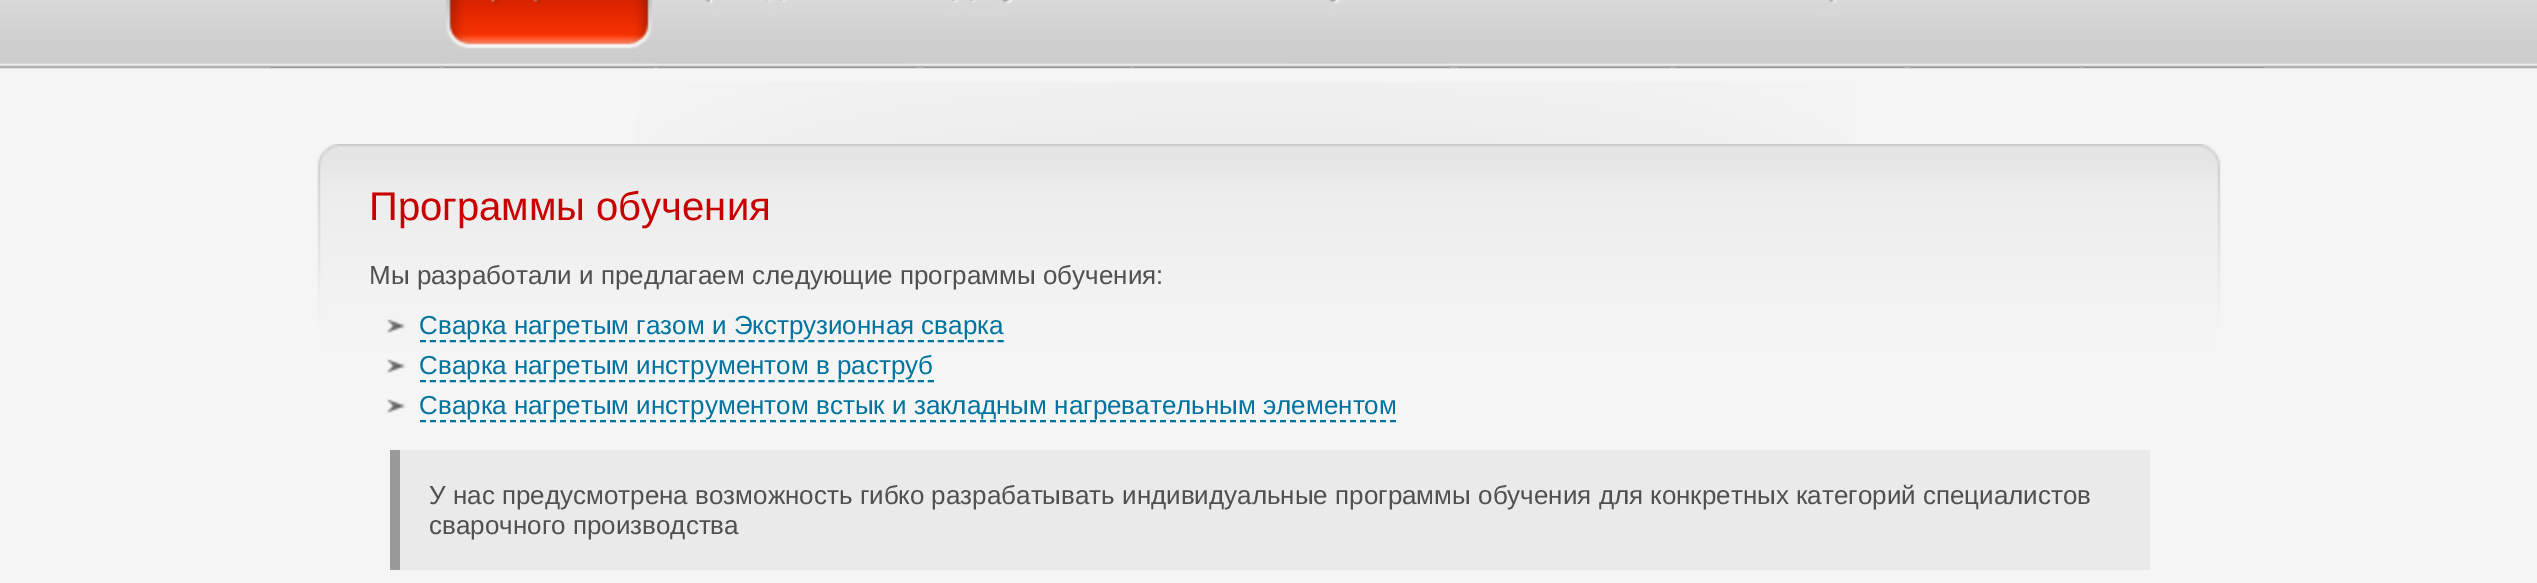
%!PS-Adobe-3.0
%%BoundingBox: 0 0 2537 583
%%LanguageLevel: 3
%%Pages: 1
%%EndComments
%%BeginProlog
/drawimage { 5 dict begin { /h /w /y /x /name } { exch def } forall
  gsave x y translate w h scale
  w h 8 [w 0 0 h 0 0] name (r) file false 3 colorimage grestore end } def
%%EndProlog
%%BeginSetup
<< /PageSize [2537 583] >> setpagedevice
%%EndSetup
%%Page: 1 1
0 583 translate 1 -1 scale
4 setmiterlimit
0.961 setgray
0 0 2537 583 rectfill
(images/1.raw) 637 82 1220 62 drawimage
(images/2.raw) 0 0 2537 69 drawimage
0.6 setgray
270 67 170 1 rectfill
(images/3.raw) 444 0 210 68 drawimage
(images/4.raw) 658 0 258 68 drawimage
(images/5.raw) 924 0 206 68 drawimage
(images/6.raw) 1134 0 316 68 drawimage
1458 67 212 1 rectfill
(images/7.raw) 1676 0 228 68 drawimage
1910 67 170 1 rectfill
2084 67 180 1 rectfill
(images/8.raw) 317 144 1904 356 drawimage
(images/9.raw) 386 319 20 15 drawimage
0 0.455 0.624 setrgbcolor
2 setlinewidth
[6 3.96] 0 setdash
newpath 420 341 moveto 1004 341 lineto stroke
(images/10.raw) 386 358 20 16 drawimage
newpath 420 381 moveto 934 381 lineto stroke
(images/10.raw) 386 398 20 16 drawimage
[6 4] 0 setdash
newpath 420 421 moveto 1396 421 lineto stroke
0.918 setgray
400 450 1750 120 rectfill
0.6 setgray
390 450 10 120 rectfill
/LiberationSans-Regular [40 0 0 -40 0 0] selectfont
0.788 0 0 setrgbcolor
369 220 moveto (Программы обучения) show
/LiberationSans-Regular [26 0 0 -26 0 0] selectfont
0.314 setgray
369 284 moveto (Мы разработали и предлагаем следующие программы обучения:) show
0 0.455 0.624 setrgbcolor
419 334 moveto (Сварка нагретым газом и Экструзионная сварка) show
419 374 moveto (Сварка нагретым инструментом в раструб) show
419 414 moveto (Сварка нагретым инструментом встык и закладным нагревательным элементом) show
0.314 setgray
429 504 moveto (У нас предусмотрена возможность гибко разрабатывать индивидуальные программы обучения для конкретных категорий специалистов) show
429 534 moveto (сварочного производства) show
showpage
%%EOF
